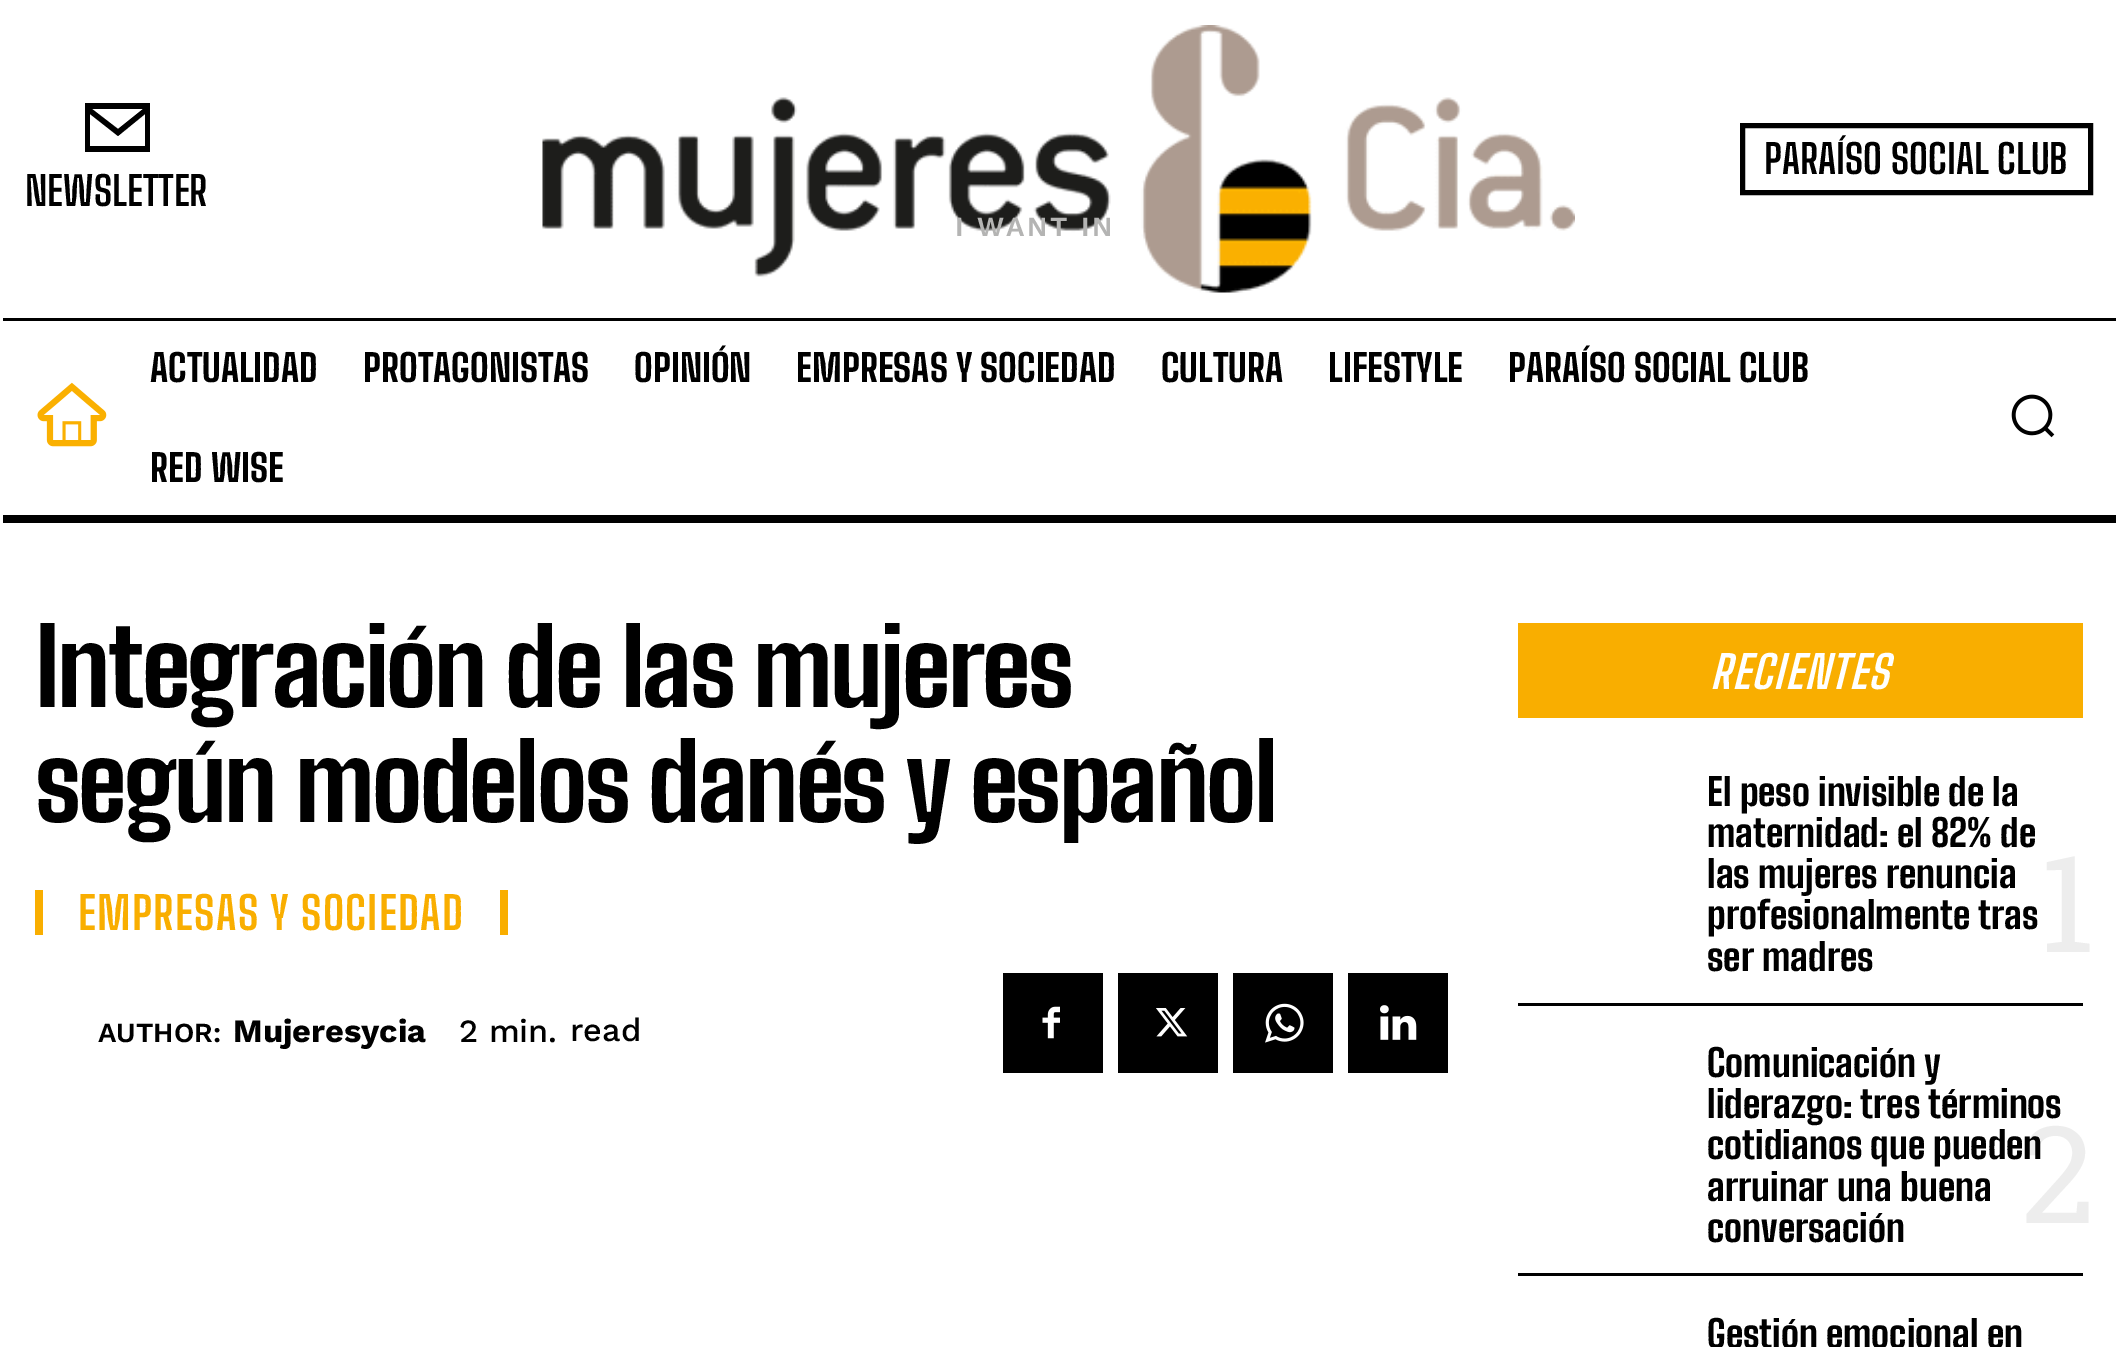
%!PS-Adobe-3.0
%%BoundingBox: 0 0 2116 1347
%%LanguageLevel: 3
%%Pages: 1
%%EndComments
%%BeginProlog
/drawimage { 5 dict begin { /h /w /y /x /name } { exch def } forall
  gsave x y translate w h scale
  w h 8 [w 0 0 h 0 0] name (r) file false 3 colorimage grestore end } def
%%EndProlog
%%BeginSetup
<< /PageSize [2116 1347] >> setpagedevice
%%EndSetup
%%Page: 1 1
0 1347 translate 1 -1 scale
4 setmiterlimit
1 setgray
0 0 2116 1347 rectfill
(images/1.raw) 542 25 1033 268 drawimage
0 setgray
5 setlinewidth
1742.5 125.5 348 67 rectstroke
newpath 85 103 moveto 85 152 lineto 150 152 lineto 150 103 lineto closepath 143 109 moveto 118 129 lineto 92 109 lineto closepath 90 146 moveto 90 114 lineto 118 136 lineto 145 114 lineto 145 146 lineto closepath fill
3 318 2113 3 rectfill
3 515 2113 8 rectfill
(images/2.raw) 37 382 70 65 drawimage
(images/3.raw) 2011 394 44 44 drawimage
0.976 0.682 0 setrgbcolor
500 890 8 45 rectfill
35 890 8 45 rectfill
0 setgray
1003 973 100 100 rectfill
(images/4.raw) 1042 1006 18 33 drawimage
1118 973 100 100 rectfill
(images/5.raw) 1156 1008 32 29 drawimage
1233 973 100 100 rectfill
(images/6.raw) 1265 1003 39 40 drawimage
1348 973 100 100 rectfill
(images/7.raw) 1380 1005 37 35 drawimage
0.976 0.682 0 setrgbcolor
1518 623 565 95 rectfill
0 setgray
1518 1003 565 3 rectfill
1518 1273 565 3 rectfill
/BigShouldersText-Bold [40 0 0 -40 0 0] selectfont
1764 174 moveto (PARAÍSO SOCIAL CLUB) show
25 206 moveto (NEWSLETTER) show
/BigShouldersText-ExtraBold [37.5 0 0 -37.5 0 0] selectfont
150 382 moveto (ACTUALIDAD) show
363 382 moveto (PROTAGONISTAS) show
634 382 moveto (OPINIÓN) show
796 382 moveto (EMPRESAS Y SOCIEDAD) show
1161 382 moveto (CULTURA) show
1328 382 moveto (LIFESTYLE) show
1508 382 moveto (PARAÍSO SOCIAL CLUB) show
150 482 moveto (RED WISE) show
/BigShouldersText-ExtraBold [105 0 0 -105 0 0] selectfont
35 707 moveto -2.5 0 (Integración de las mujeres) ashow
35 822 moveto -2.5 0 (según modelos danés y español) ashow
/BigShouldersText-Bold [45 0 0 -45 0 0] selectfont
0.976 0.682 0 setrgbcolor
78 930 moveto 1.25 0 (EMPRESAS Y SOCIEDAD) ashow
/WorkSans-SemiBold [27.5 0 0 -27.5 0 0] selectfont
0 setgray
98 1042 moveto (AUTHOR:) show
/WorkSans-Bold [32.5 0 0 -32.5 0 0] selectfont
233 1042 moveto (Mujeresycia) show
/WorkSans-Medium [32.5 0 0 -32.5 0 0] selectfont
459 1042 moveto (2 min.) show
570 1041 moveto (read) show
/BigShouldersText-BoldItalic [45 0 0 -45 0 0] selectfont
1 setgray
1710 689 moveto 1.25 0 (RECIENTES) ashow
/BigShouldersText-ExtraBold [37.5 0 0 -37.5 0 0] selectfont
0 setgray
1707 806 moveto (El peso invisible de la) show
1707 847 moveto (maternidad: el 82% de) show
1707 888 moveto (las mujeres renuncia) show
1707 929 moveto (profesionalmente tras) show
1707 971 moveto (ser madres) show
/RobotoSlab-Regular [135 0 0 -135 0 0] selectfont
0.929 setgray
2039 952 moveto (1) show
/BigShouldersText-ExtraBold [37.5 0 0 -37.5 0 0] selectfont
0 setgray
1707 1077 moveto (Comunicación y) show
1707 1118 moveto (liderazgo: tres términos) show
1707 1201 moveto (arruinar una buena) show
1707 1242 moveto (conversación) show
/RobotoSlab-Regular [135 0 0 -135 0 0] selectfont
0.929 setgray
2020 1223 moveto (2) show
/BigShouldersText-ExtraBold [37.5 0 0 -37.5 0 0] selectfont
0 setgray
1707 1159 moveto (cotidianos que pueden) show
1707 1348 moveto (Gestión emocional en) show
/WorkSans-SemiBold [27.5 0 0 -27.5 0 0] selectfont
0.706 0.706 0.702 setrgbcolor
955 236 moveto 2.5 0 (I WANT IN) ashow
showpage
%%EOF
